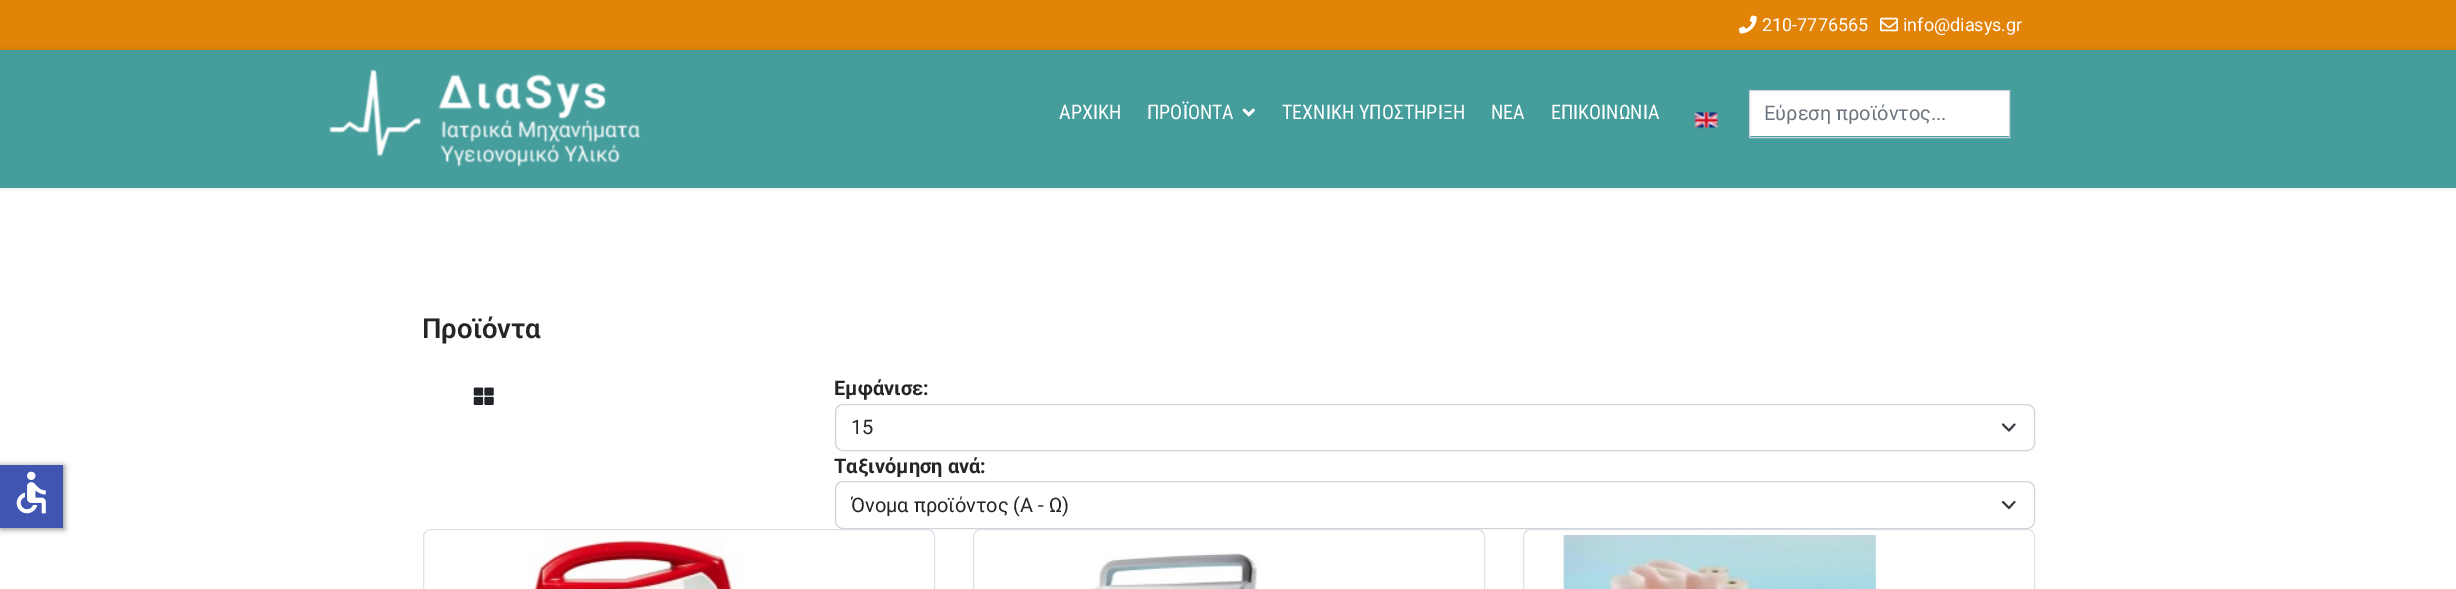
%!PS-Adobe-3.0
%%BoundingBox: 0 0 2456 589
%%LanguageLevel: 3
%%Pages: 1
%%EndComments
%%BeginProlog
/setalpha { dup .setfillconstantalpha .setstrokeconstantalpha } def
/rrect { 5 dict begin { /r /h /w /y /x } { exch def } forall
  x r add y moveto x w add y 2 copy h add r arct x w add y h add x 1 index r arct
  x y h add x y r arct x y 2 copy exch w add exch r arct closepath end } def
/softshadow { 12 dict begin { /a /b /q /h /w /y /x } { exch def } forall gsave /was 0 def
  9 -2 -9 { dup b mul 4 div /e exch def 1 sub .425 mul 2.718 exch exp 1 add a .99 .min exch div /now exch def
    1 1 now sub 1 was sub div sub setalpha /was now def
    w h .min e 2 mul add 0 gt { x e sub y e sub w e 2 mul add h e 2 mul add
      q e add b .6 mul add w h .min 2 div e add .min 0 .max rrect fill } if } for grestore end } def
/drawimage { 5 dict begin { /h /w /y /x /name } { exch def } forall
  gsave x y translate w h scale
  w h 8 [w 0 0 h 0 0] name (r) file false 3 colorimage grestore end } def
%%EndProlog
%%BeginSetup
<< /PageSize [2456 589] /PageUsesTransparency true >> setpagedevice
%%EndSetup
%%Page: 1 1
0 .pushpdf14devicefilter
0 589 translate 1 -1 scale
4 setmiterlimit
1 setgray
0 0 2456 589 rectfill
0 setgray
1 466 63 63 0 3 0.5 softshadow
0.251 0.329 0.698 setrgbcolor
0 465 63 63 rectfill
(images/1.raw) 16 471 30 43 drawimage
0.886 0.518 0.031 setrgbcolor
0 0 2456 50 rectfill
(images/2.raw) 1738 15 19 19 drawimage
(images/3.raw) 1880 17 18 15 drawimage
0 setgray
0 50 2456 138 0 2.5 0.1 softshadow
0.271 0.616 0.612 setrgbcolor
0 50 2456 138 rectfill
(images/4.raw) 329 69 312 98 drawimage
(images/5.raw) 1242 108 13 9 drawimage
(images/6.raw) 1694 112 24 17 drawimage
1 setgray
1750 91 259 45 rectfill
0.808 0.831 0.855 setrgbcolor
1749.5 90.5 260 47 rectstroke
(images/7.raw) 473 387 21 18 drawimage
0.204 0.227 0.251 setrgbcolor
1.9 setlinewidth
1 setlinecap
1 setlinejoin
newpath 2003 424.5 moveto 2009 430.5 lineto 2014.5 424.5 lineto stroke
0.808 0.831 0.855 setrgbcolor
1 setlinewidth
0 setlinecap
0 setlinejoin
835.5 404.5 1199 46 7.5 rrect stroke
0.204 0.227 0.251 setrgbcolor
1.9 setlinewidth
1 setlinecap
1 setlinejoin
newpath 2003 502 moveto 2009 508 lineto 2014.5 502 lineto stroke
0.808 0.831 0.855 setrgbcolor
1 setlinewidth
0 setlinecap
0 setlinejoin
835.5 481.5 1199 47 7.5 rrect stroke
0.871 0.886 0.902 setrgbcolor
423.5 529.5 511 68 7.5 rrect stroke
(images/8.raw) 526 535 218 54 drawimage
973.5 529.5 511 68 7.5 rrect stroke
(images/9.raw) 1093 553 165 36 drawimage
1523.5 529.5 511 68 7.5 rrect stroke
(images/10.raw) 1563 535 313 54 drawimage
/Roboto-Regular [18 0 0 -18 0 0] selectfont
1 setgray
1762 31 moveto (210-7776565) show
1903 31 moveto (info@diasys.gr) show
/RobotoCondensed-Regular [20 0 0 -20 0 0] selectfont
1059 119 moveto (ΑΡΧΙΚΗ) show
1147 119 moveto (ΠΡΟΪΟΝΤΑ) show
1282 119 moveto (ΤΕΧΝΙΚΗ ΥΠΟΣΤΗΡΙΞΗ) show
1491 119 moveto (ΝΕΑ) show
1551 119 moveto (ΕΠΙΚΟΙΝΩΝΙΑ) show
/Roboto-Regular [20 0 0 -20 0 0] selectfont
0.424 0.459 0.49 setrgbcolor
1764 120 moveto (Εύρεση προϊόντος...) show
/Roboto-SemiBold [27.5 0 0 -27.5 0 0] selectfont
0.145 setgray
422 338 moveto (Προϊόντα) show
/Roboto-Bold [20 0 0 -20 0 0] selectfont
834 395 moveto (Εμφάνισε:) show
/Roboto-Regular [20 0 0 -20 0 0] selectfont
851 434 moveto (15) show
/Roboto-Bold [20 0 0 -20 0 0] selectfont
834 473 moveto (Ταξινόμηση ανά:) show
gsave
851 490 1138 30 rectclip
/Roboto-Regular [20 0 0 -20 0 0] selectfont
851 512 moveto (Όνομα προϊόντος \(Α - Ω\)) show
grestore
.poppdf14devicefilter showpage
%%EOF
